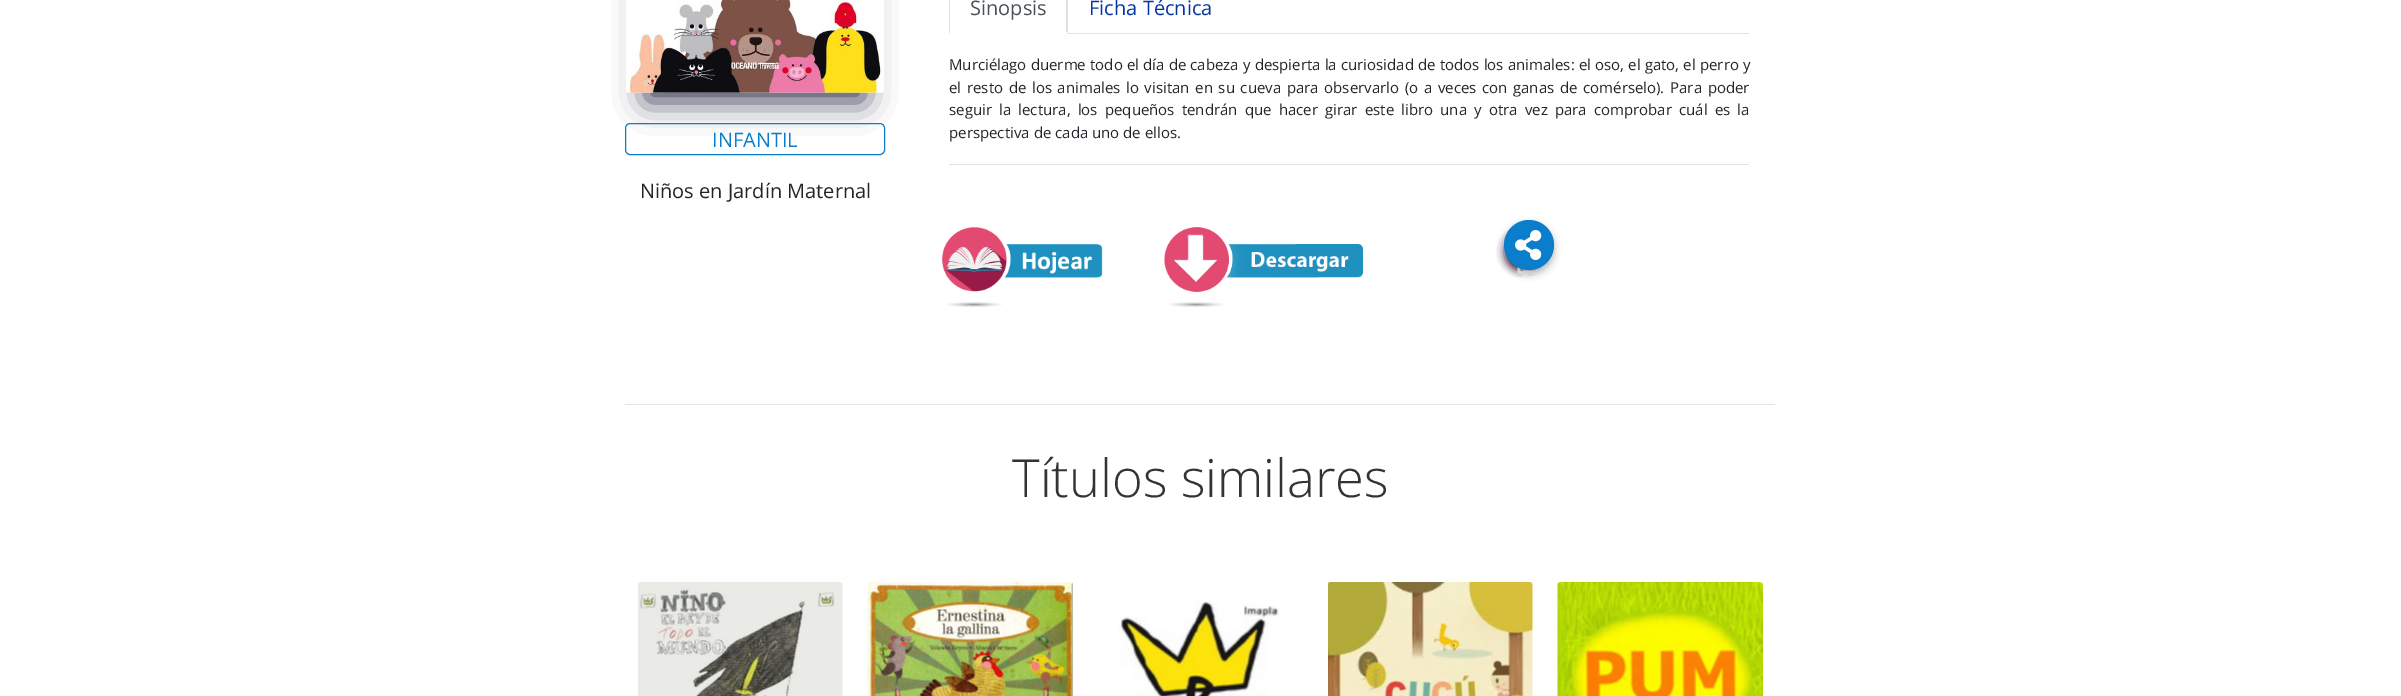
%!PS-Adobe-3.0
%%BoundingBox: 0 0 2401 696
%%LanguageLevel: 3
%%Pages: 1
%%EndComments
%%BeginProlog
/setalpha { dup .setfillconstantalpha .setstrokeconstantalpha } def
/rrect { 5 dict begin { /r /h /w /y /x } { exch def } forall
  x r add y moveto x w add y 2 copy h add r arct x w add y h add x 1 index r arct
  x y h add x y r arct x y 2 copy exch w add exch r arct closepath end } def
/softshadow { 12 dict begin { /a /b /q /h /w /y /x } { exch def } forall gsave /was 0 def
  9 -2 -9 { dup b mul 4 div /e exch def 1 sub .425 mul 2.718 exch exp 1 add a .99 .min exch div /now exch def
    1 1 now sub 1 was sub div sub setalpha /was now def
    w h .min e 2 mul add 0 gt { x e sub y e sub w e 2 mul add h e 2 mul add
      q e add b .6 mul add w h .min 2 div e add .min 0 .max rrect fill } if } for grestore end } def
/drawimage { 5 dict begin { /h /w /y /x /name } { exch def } forall
  gsave x y translate w h scale
  w h 8 [w 0 0 h 0 0] name (r) file false 3 colorimage grestore end } def
%%EndProlog
%%BeginSetup
<< /PageSize [2401 696] /PageUsesTransparency true >> setpagedevice
%%EndSetup
%%Page: 1 1
0 .pushpdf14devicefilter
0 696 translate 1 -1 scale
4 setmiterlimit
1 setgray
0 0 2401 696 rectfill
0.871 0.886 0.902 setrgbcolor
1068 33 681 1 rectfill
newpath 1066 -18 moveto 1068 -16 lineto 1068 34 lineto 1066 32 lineto 1066 -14 lineto 1065 -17 lineto closepath fill
1 setgray
newpath 1068 34 moveto 949 34 lineto 950 32 lineto 1066 32 lineto closepath fill
0.871 0.886 0.902 setrgbcolor
newpath 949 34 moveto 949 -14 lineto 949 -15 949 -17 950 -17 curveto 951 -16 lineto 950 -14 lineto 950 32 lineto closepath fill
949 164 800 1 rectfill
0.094 0.122 0.235 setrgbcolor
646 -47 218 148 0 15.5 0.86 softshadow
(images/1.raw) 626 0 258 93 drawimage
0.039 0.494 0.792 setrgbcolor
625.5 123.5 259 31 4.5 rrect stroke
(images/2.raw) 942 227 161 80 drawimage
(images/3.raw) 1164 227 199 80 drawimage
0 setgray
1510 243 25 25 12.5 4 0.28 softshadow
0.204 0.227 0.251 setrgbcolor
1510 239 25 25 12.5 6 1 softshadow
(images/5.raw) 1520 268 23 8 drawimage
0 setgray
1510 243 25 25 12.5 4 0.28 softshadow
0.231 0.349 0.596 setrgbcolor
1510 239 25 25 12.5 6 1 softshadow
(images/6.raw) 1522 269 7 8 drawimage
0 setgray
1510 243 25 25 12.5 4 0.28 softshadow
0.824 0.184 0.443 setrgbcolor
1510 239 25 25 12.5 6 1 softshadow
(images/7.raw) 1517 262 30 12 drawimage
0 setgray
1504 224 50 50 25 4 0.28 softshadow
0.039 0.494 0.792 setrgbcolor
newpath 1529 245 25 0 360 arc closepath fill
(images/4.raw) 1515 230 27 30 drawimage
0.902 setgray
625 404 1150 1 rectfill
(images/8.raw) 638 582 205 114 drawimage
(images/9.raw) 867 582 206 114 drawimage
(images/10.raw) 1119 601 160 95 drawimage
(images/11.raw) 1328 582 205 114 drawimage
(images/12.raw) 1557 582 206 114 drawimage
/OpenSans-Regular [20 0 0 -20 0 0] selectfont
0.286 0.314 0.341 setrgbcolor
970 15 moveto (Sinopsis) show
0 0.212 0.627 setrgbcolor
1089 15 moveto (Ficha Técnica) show
/OpenSans-Regular [15 0 0 -15 0 0] selectfont
0.129 0.145 0.161 setrgbcolor
949 70 moveto 0.25 0 32 (Murciélago duerme todo el día de cabeza y despierta la curiosidad de todos los animales: el oso, el gato, el perro y) widthshow
949 93 moveto 1.75 0 32 (el resto de los animales lo visitan en su cueva para observarlo \(o a veces con ganas de comérselo\). Para poder) widthshow
949 115 moveto 3.25 0 32 (seguir la lectura, los pequeños tendrán que hacer girar este libro una y otra vez para comprobar cuál es la) widthshow
949 138 moveto (perspectiva de cada uno de ellos.) show
/OpenSans-Regular [20 0 0 -20 0 0] selectfont
0.039 0.494 0.792 setrgbcolor
712 147 moveto (INFANTIL) show
0.129 0.145 0.161 setrgbcolor
640 198 moveto (Niños en Jardín Maternal) show
/OpenSans-Light [52.5 0 0 -52.5 0 0] selectfont
0.2 setgray
1012 497 moveto (Títulos similares) show
.poppdf14devicefilter showpage
%%EOF
